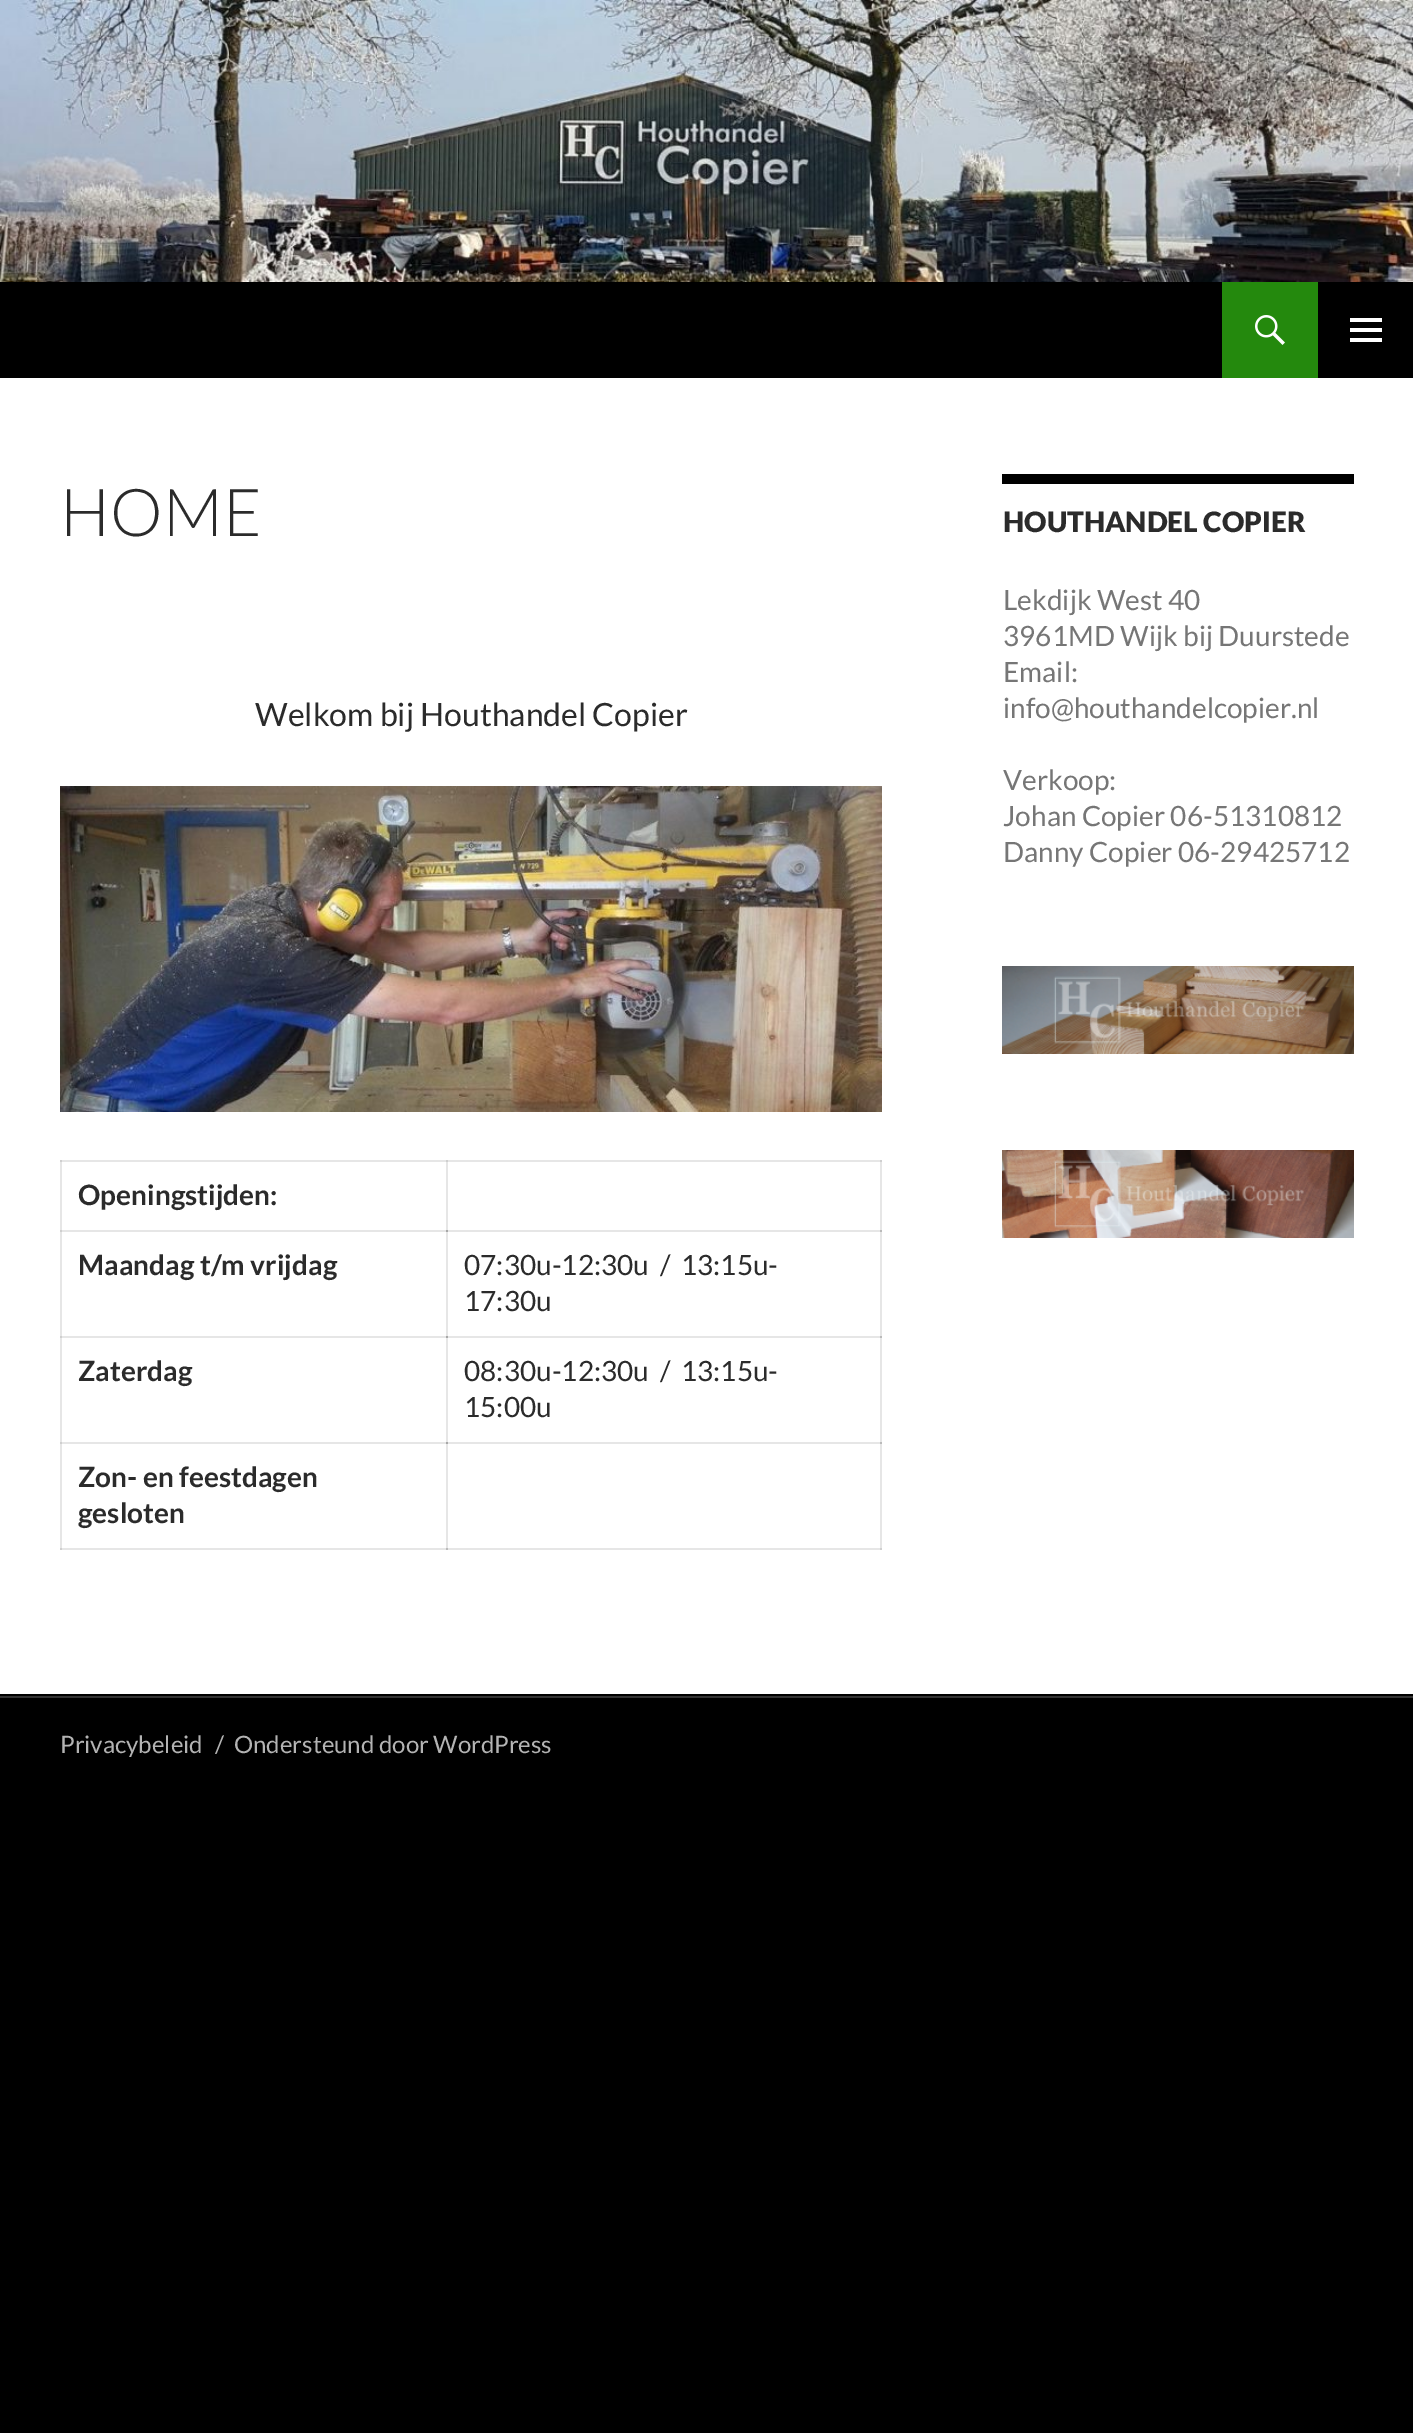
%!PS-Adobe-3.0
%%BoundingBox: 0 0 1413 2433
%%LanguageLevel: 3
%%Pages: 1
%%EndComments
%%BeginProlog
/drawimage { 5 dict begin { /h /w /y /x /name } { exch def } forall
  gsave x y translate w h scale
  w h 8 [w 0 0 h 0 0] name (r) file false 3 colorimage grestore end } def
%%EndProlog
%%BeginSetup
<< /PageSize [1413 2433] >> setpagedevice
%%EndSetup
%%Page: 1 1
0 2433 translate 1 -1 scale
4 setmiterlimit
0 setgray
0 0 1413 2433 rectfill
1 setgray
0 378 1413 1316 rectfill
0.902 setgray
60 1230 388 2 rectfill
446 1160 2 72 rectfill
446 1230 436 2 rectfill
880 1160 2 72 rectfill
60 1336 388 2 rectfill
446 1230 2 108 rectfill
0.655 setgray
446 1230 2 2 rectfill
0.902 setgray
446 1336 436 2 rectfill
880 1230 2 108 rectfill
0.729 setgray
880 1230 2 2 rectfill
0.902 setgray
60 1442 388 2 rectfill
446 1336 2 108 rectfill
0.655 setgray
446 1336 2 2 rectfill
0.902 setgray
446 1442 436 2 rectfill
880 1336 2 108 rectfill
0.729 setgray
880 1336 2 2 rectfill
0.902 setgray
60 1548 388 2 rectfill
446 1442 2 108 rectfill
0.655 setgray
446 1442 2 2 rectfill
0.902 setgray
446 1548 436 2 rectfill
0.729 setgray
446 1548 2 2 rectfill
0.902 setgray
60 1160 2 390 rectfill
0.812 setgray
60 1230 2 2 rectfill
60 1336 2 2 rectfill
60 1442 2 2 rectfill
60 1548 2 2 rectfill
(images/1.raw) 0 0 1413 282 drawimage
0.141 0.537 0.051 setrgbcolor
1222 282 96 96 rectfill
(images/2.raw) 1255 315 30 30 drawimage
(images/3.raw) 1350 318 32 24 drawimage
(images/4.raw) 60 786 822 326 drawimage
0.902 setgray
60 1160 822 2 rectfill
0.812 setgray
446 1160 2 2 rectfill
880 1160 2 2 rectfill
60 1160 2 2 rectfill
0.902 setgray
880 1442 2 108 rectfill
0.729 setgray
880 1442 2 2 rectfill
0.812 setgray
880 1548 2 2 rectfill
0 setgray
1002 474 352 10 rectfill
(images/5.raw) 1002 966 352 88 drawimage
(images/6.raw) 1002 1150 352 88 drawimage
0.2 setgray
0 1696 1413 2 rectfill
/Lato-Light [66 0 0 -66 0 0] selectfont
0.169 setgray
60 536 moveto (HOME) show
/Lato-Regular [32 0 0 -32 0 0] selectfont
255 726 moveto (Welkom bij Houthandel Copier) show
/Lato-Bold [28 0 0 -28 0 0] selectfont
78 1205 moveto (Openingstijden:) show
78 1275 moveto (Maandag t/m vrijdag) show
/Lato-Regular [28 0 0 -28 0 0] selectfont
464 1275 moveto (07:30u-12:30u  /  13:15u-) show
464 1311 moveto (17:30u) show
/Lato-Bold [28 0 0 -28 0 0] selectfont
78 1381 moveto (Zaterdag) show
/Lato-Regular [28 0 0 -28 0 0] selectfont
464 1381 moveto (08:30u-12:30u  /  13:15u-) show
464 1417 moveto (15:00u) show
/Lato-Bold [28 0 0 -28 0 0] selectfont
78 1487 moveto (Zon- en feestdagen) show
78 1523 moveto (gesloten) show
/Lato-Black [28 0 0 -28 0 0] selectfont
1003 532 moveto (HOUTHANDEL COPIER) show
/Lato-Regular [28 0 0 -28 0 0] selectfont
0.463 setgray
1003 610 moveto (Lekdijk West 40) show
1003 646 moveto (3961MD Wijk bij Duurstede) show
1003 682 moveto (Email:) show
1003 718 moveto (info@houthandelcopier.nl) show
1003 790 moveto (Verkoop:) show
1003 826 moveto (Johan Copier 06-51310812) show
1003 862 moveto (Danny Copier 06-29425712) show
/Lato-Regular [24 0 0 -24 0 0] selectfont
0.702 setgray
60 1753 moveto (Privacybeleid) show
215 1753 moveto (/) show
234 1753 moveto (Ondersteund door WordPress) show
showpage
%%EOF
